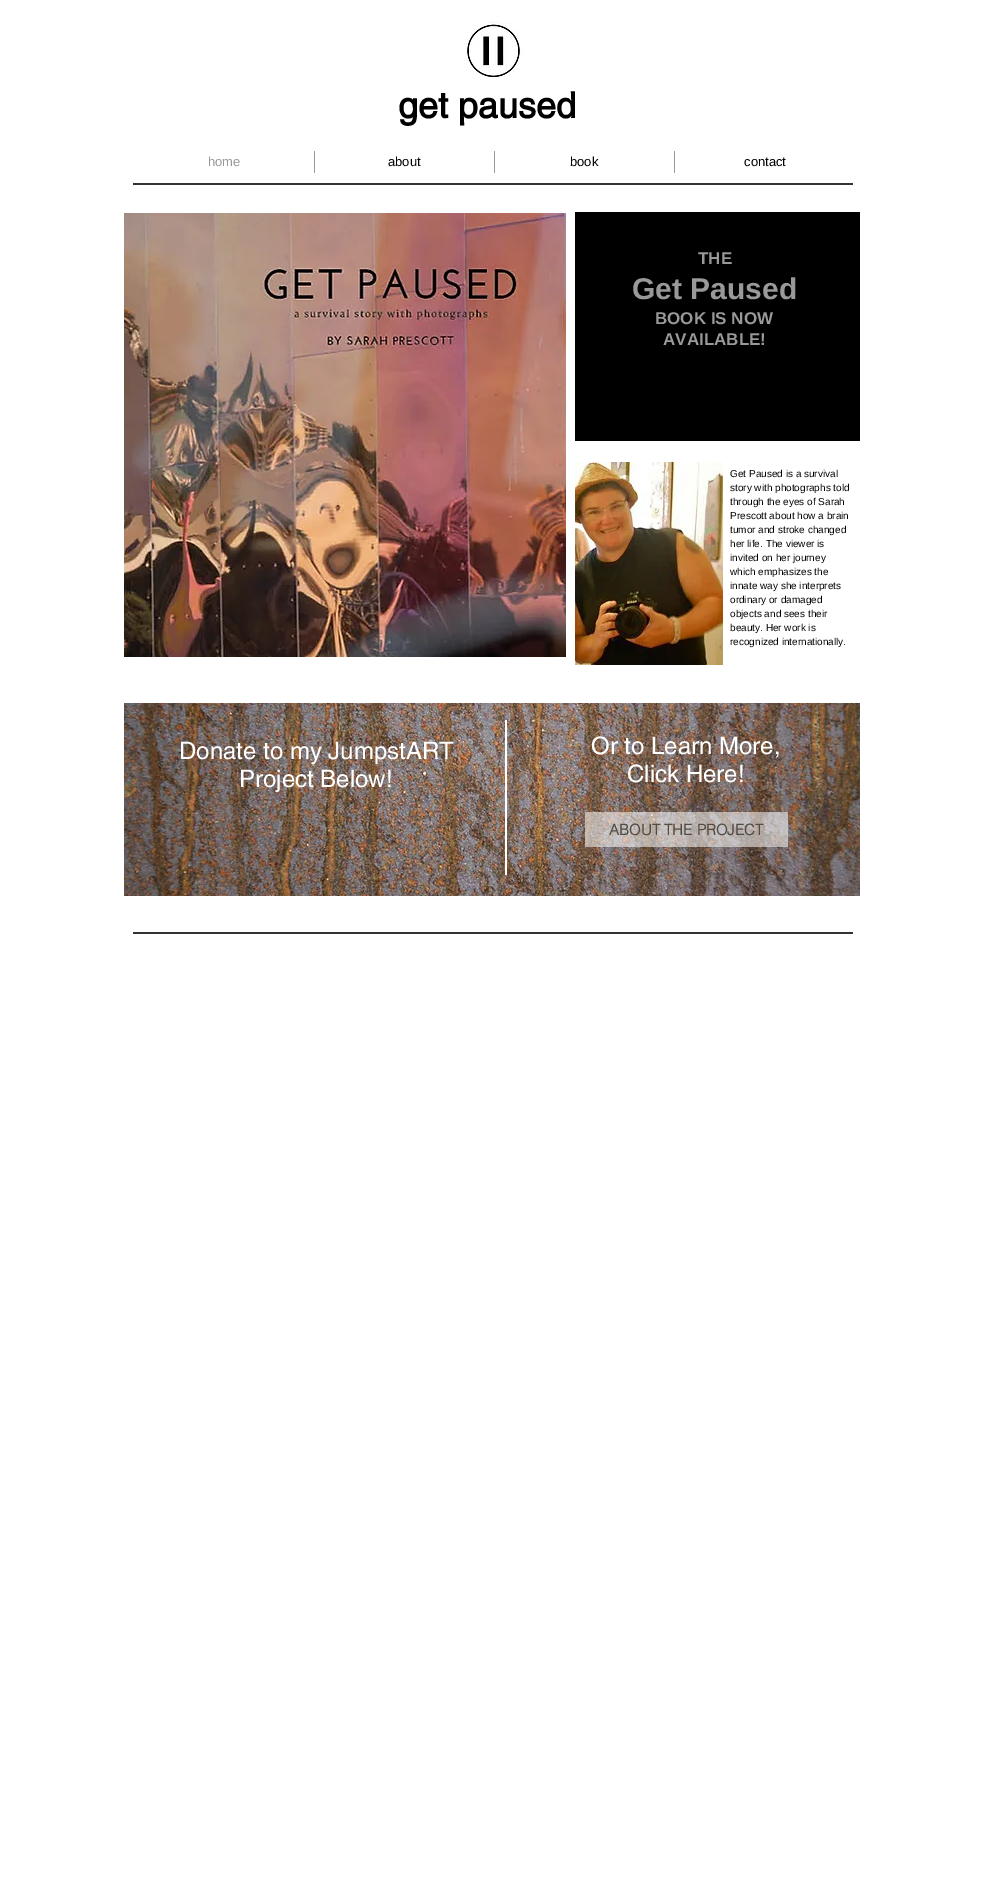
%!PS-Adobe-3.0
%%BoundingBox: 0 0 988 1883
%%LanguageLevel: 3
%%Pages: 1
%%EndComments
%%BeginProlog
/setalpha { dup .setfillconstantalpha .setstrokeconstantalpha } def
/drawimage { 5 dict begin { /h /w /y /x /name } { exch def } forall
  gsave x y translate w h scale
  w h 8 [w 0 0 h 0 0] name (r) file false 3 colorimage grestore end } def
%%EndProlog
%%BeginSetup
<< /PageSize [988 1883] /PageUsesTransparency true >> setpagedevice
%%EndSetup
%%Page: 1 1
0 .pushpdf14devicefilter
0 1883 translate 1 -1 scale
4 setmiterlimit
1 setgray
0 0 988 1883 rectfill
(images/1.raw) 467 21 56 56 drawimage
0.6 setgray
314 151 1 22 rectfill
494 151 1 22 rectfill
674 151 1 22 rectfill
0.2 setgray
133 183 720 2 rectfill
(images/2.raw) 124 213 442 444 drawimage
0 setgray
575 212 285 229 rectfill
(images/3.raw) 575 462 148 203 drawimage
(images/4.raw) 124 703 736 193 drawimage
1 setgray
505 720 2 155 rectfill
0.54 setalpha
585 812 203 35 rectfill
1 setalpha
0.2 setgray
133 932 720 2 rectfill
/helvetica-Bold [36 0 0 -36 0 0] selectfont
0 setgray
398 118 moveto (get paused) show
/LiberationSans-Regular [13 0 0 -13 0 0] selectfont
0.6 setgray
208 166 moveto (home) show
0 setgray
388 166 moveto (about) show
570 166 moveto (book) show
744 166 moveto (contact) show
/LiberationSans-Bold [17 0 0 -17 0 0] selectfont
0.6 setgray
698 264 moveto (THE) show
/LiberationSans-Bold [30 0 0 -30 0 0] selectfont
632 299 moveto (Get Paused) show
/LiberationSans-Bold [17 0 0 -17 0 0] selectfont
655 324 moveto (BOOK IS NOW) show
663 345 moveto (AVAILABLE!) show
/LiberationSans-Regular [10 0 0 -10 0 0] selectfont
0 setgray
730 477 moveto (Get Paused is a survival) show
730 491 moveto (story with photographs told) show
730 505 moveto (through the eyes of Sarah) show
730 519 moveto (Prescott about how a brain) show
730 533 moveto (tumor and stroke changed) show
730 547 moveto (her life. The viewer is) show
730 561 moveto (invited on her journey) show
730 575 moveto (which emphasizes the) show
730 589 moveto (innate way she interprets) show
730 603 moveto (ordinary or damaged) show
730 617 moveto (objects and sees their) show
730 631 moveto (beauty. Her work is) show
730 645 moveto (recognized internationally.) show
/helvetica-Regular [24 0 0 -24 0 0] selectfont
1 setgray
179 759 moveto (Donate to my JumpstART) show
239 787 moveto (Project Below!) show
591 754 moveto (Or to Learn More,) show
627 782 moveto (Click Here!) show
/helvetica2-Bold [15 0 0 -15 0 0] selectfont
0.322 0.302 0.263 setrgbcolor
609 835 moveto (ABOUT THE PROJECT) show
.poppdf14devicefilter showpage
%%EOF
